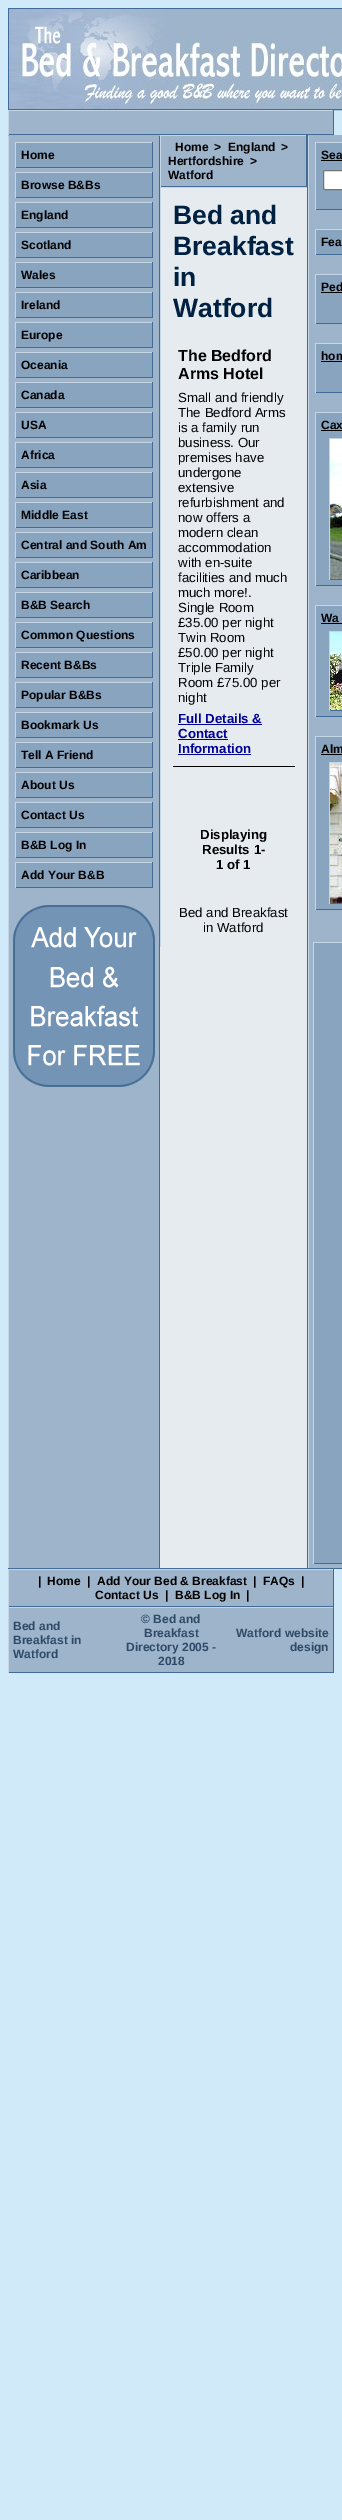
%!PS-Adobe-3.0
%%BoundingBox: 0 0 342 2520
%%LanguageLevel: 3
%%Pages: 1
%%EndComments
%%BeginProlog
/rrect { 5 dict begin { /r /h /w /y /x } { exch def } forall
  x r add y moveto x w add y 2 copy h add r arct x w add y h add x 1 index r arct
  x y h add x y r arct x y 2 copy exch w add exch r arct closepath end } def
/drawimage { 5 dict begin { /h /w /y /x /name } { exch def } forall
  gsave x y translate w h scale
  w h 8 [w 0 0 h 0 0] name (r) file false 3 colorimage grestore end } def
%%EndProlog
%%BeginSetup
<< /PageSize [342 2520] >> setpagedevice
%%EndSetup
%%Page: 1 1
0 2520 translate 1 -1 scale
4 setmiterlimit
0.816 0.918 0.976 setrgbcolor
0 0 342 2520 rectfill
0.259 0.424 0.592 setrgbcolor
8.5 8.5 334 101 rectstroke
(images/1.raw) 9 9 333 100 drawimage
0.62 0.706 0.796 setrgbcolor
9 111 324 23 rectfill
0.769 0.835 0.902 setrgbcolor
8 110 326 1 rectfill
0.259 0.424 0.592 setrgbcolor
333 110 1 25 rectfill
8 134 326 1 rectfill
0.769 0.835 0.902 setrgbcolor
8 110 1 25 rectfill
0.62 0.706 0.796 setrgbcolor
8 135 152 1 rectfill
308 135 34 1 rectfill
0.902 0.922 0.941 setrgbcolor
160 188 147 1380 rectfill
0.259 0.424 0.592 setrgbcolor
307 135 1 1433 rectfill
0.62 0.706 0.796 setrgbcolor
161 136 145 50 rectfill
0.769 0.835 0.902 setrgbcolor
160 135 147 1 rectfill
0.259 0.424 0.592 setrgbcolor
306 135 1 52 rectfill
160 186 147 1 rectfill
0.769 0.835 0.902 setrgbcolor
160 135 1 52 rectfill
160 187 147 1 rectfill
160 187 1 760 rectfill
0 setgray
173 766 122 1 rectfill
0 0 0.6 setrgbcolor
178 724 84 1 rectfill
178 739 50 1 rectfill
178 754 73 1 rectfill
0.62 0.706 0.796 setrgbcolor
9 136 150 1432 rectfill
0.259 0.424 0.592 setrgbcolor
159 136 1 1432 rectfill
0.769 0.835 0.902 setrgbcolor
8 136 1 1432 rectfill
0.533 0.643 0.749 setrgbcolor
16 143 136 24 rectfill
0.769 0.835 0.902 setrgbcolor
15 142 138 1 rectfill
0.259 0.424 0.592 setrgbcolor
152 142 1 26 rectfill
15 167 138 1 rectfill
0.769 0.835 0.902 setrgbcolor
15 142 1 26 rectfill
0.533 0.643 0.749 setrgbcolor
16 173 136 24 rectfill
0.769 0.835 0.902 setrgbcolor
15 172 138 1 rectfill
0.259 0.424 0.592 setrgbcolor
152 172 1 26 rectfill
15 197 138 1 rectfill
0.769 0.835 0.902 setrgbcolor
15 172 1 26 rectfill
0.533 0.643 0.749 setrgbcolor
16 203 136 24 rectfill
0.769 0.835 0.902 setrgbcolor
15 202 138 1 rectfill
0.259 0.424 0.592 setrgbcolor
152 202 1 26 rectfill
15 227 138 1 rectfill
0.769 0.835 0.902 setrgbcolor
15 202 1 26 rectfill
0.533 0.643 0.749 setrgbcolor
16 233 136 24 rectfill
0.769 0.835 0.902 setrgbcolor
15 232 138 1 rectfill
0.259 0.424 0.592 setrgbcolor
152 232 1 26 rectfill
15 257 138 1 rectfill
0.769 0.835 0.902 setrgbcolor
15 232 1 26 rectfill
0.533 0.643 0.749 setrgbcolor
16 263 136 24 rectfill
0.769 0.835 0.902 setrgbcolor
15 262 138 1 rectfill
0.259 0.424 0.592 setrgbcolor
152 262 1 26 rectfill
15 287 138 1 rectfill
0.769 0.835 0.902 setrgbcolor
15 262 1 26 rectfill
0.533 0.643 0.749 setrgbcolor
16 293 136 24 rectfill
0.769 0.835 0.902 setrgbcolor
15 292 138 1 rectfill
0.259 0.424 0.592 setrgbcolor
152 292 1 26 rectfill
15 317 138 1 rectfill
0.769 0.835 0.902 setrgbcolor
15 292 1 26 rectfill
0.533 0.643 0.749 setrgbcolor
16 323 136 24 rectfill
0.769 0.835 0.902 setrgbcolor
15 322 138 1 rectfill
0.259 0.424 0.592 setrgbcolor
152 322 1 26 rectfill
15 347 138 1 rectfill
0.769 0.835 0.902 setrgbcolor
15 322 1 26 rectfill
0.533 0.643 0.749 setrgbcolor
16 353 136 24 rectfill
0.769 0.835 0.902 setrgbcolor
15 352 138 1 rectfill
0.259 0.424 0.592 setrgbcolor
152 352 1 26 rectfill
15 377 138 1 rectfill
0.769 0.835 0.902 setrgbcolor
15 352 1 26 rectfill
0.533 0.643 0.749 setrgbcolor
16 383 136 24 rectfill
0.769 0.835 0.902 setrgbcolor
15 382 138 1 rectfill
0.259 0.424 0.592 setrgbcolor
152 382 1 26 rectfill
15 407 138 1 rectfill
0.769 0.835 0.902 setrgbcolor
15 382 1 26 rectfill
0.533 0.643 0.749 setrgbcolor
16 413 136 24 rectfill
0.769 0.835 0.902 setrgbcolor
15 412 138 1 rectfill
0.259 0.424 0.592 setrgbcolor
152 412 1 26 rectfill
15 437 138 1 rectfill
0.769 0.835 0.902 setrgbcolor
15 412 1 26 rectfill
0.533 0.643 0.749 setrgbcolor
16 443 136 24 rectfill
0.769 0.835 0.902 setrgbcolor
15 442 138 1 rectfill
0.259 0.424 0.592 setrgbcolor
152 442 1 26 rectfill
15 467 138 1 rectfill
0.769 0.835 0.902 setrgbcolor
15 442 1 26 rectfill
0.533 0.643 0.749 setrgbcolor
16 473 136 24 rectfill
0.769 0.835 0.902 setrgbcolor
15 472 138 1 rectfill
0.259 0.424 0.592 setrgbcolor
152 472 1 26 rectfill
15 497 138 1 rectfill
0.769 0.835 0.902 setrgbcolor
15 472 1 26 rectfill
0.533 0.643 0.749 setrgbcolor
16 503 136 24 rectfill
0.769 0.835 0.902 setrgbcolor
15 502 138 1 rectfill
0.259 0.424 0.592 setrgbcolor
152 502 1 26 rectfill
15 527 138 1 rectfill
0.769 0.835 0.902 setrgbcolor
15 502 1 26 rectfill
0.533 0.643 0.749 setrgbcolor
16 533 136 24 rectfill
0.769 0.835 0.902 setrgbcolor
15 532 138 1 rectfill
0.259 0.424 0.592 setrgbcolor
152 532 1 26 rectfill
15 557 138 1 rectfill
0.769 0.835 0.902 setrgbcolor
15 532 1 26 rectfill
0.533 0.643 0.749 setrgbcolor
16 563 136 24 rectfill
0.769 0.835 0.902 setrgbcolor
15 562 138 1 rectfill
0.259 0.424 0.592 setrgbcolor
152 562 1 26 rectfill
15 587 138 1 rectfill
0.769 0.835 0.902 setrgbcolor
15 562 1 26 rectfill
0.533 0.643 0.749 setrgbcolor
16 593 136 24 rectfill
0.769 0.835 0.902 setrgbcolor
15 592 138 1 rectfill
0.259 0.424 0.592 setrgbcolor
152 592 1 26 rectfill
15 617 138 1 rectfill
0.769 0.835 0.902 setrgbcolor
15 592 1 26 rectfill
0.533 0.643 0.749 setrgbcolor
16 623 136 24 rectfill
0.769 0.835 0.902 setrgbcolor
15 622 138 1 rectfill
0.259 0.424 0.592 setrgbcolor
152 622 1 26 rectfill
15 647 138 1 rectfill
0.769 0.835 0.902 setrgbcolor
15 622 1 26 rectfill
0.533 0.643 0.749 setrgbcolor
16 653 136 24 rectfill
0.769 0.835 0.902 setrgbcolor
15 652 138 1 rectfill
0.259 0.424 0.592 setrgbcolor
152 652 1 26 rectfill
15 677 138 1 rectfill
0.769 0.835 0.902 setrgbcolor
15 652 1 26 rectfill
0.533 0.643 0.749 setrgbcolor
16 683 136 24 rectfill
0.769 0.835 0.902 setrgbcolor
15 682 138 1 rectfill
0.259 0.424 0.592 setrgbcolor
152 682 1 26 rectfill
15 707 138 1 rectfill
0.769 0.835 0.902 setrgbcolor
15 682 1 26 rectfill
0.533 0.643 0.749 setrgbcolor
16 713 136 24 rectfill
0.769 0.835 0.902 setrgbcolor
15 712 138 1 rectfill
0.259 0.424 0.592 setrgbcolor
152 712 1 26 rectfill
15 737 138 1 rectfill
0.769 0.835 0.902 setrgbcolor
15 712 1 26 rectfill
0.533 0.643 0.749 setrgbcolor
16 743 136 24 rectfill
0.769 0.835 0.902 setrgbcolor
15 742 138 1 rectfill
0.259 0.424 0.592 setrgbcolor
152 742 1 26 rectfill
15 767 138 1 rectfill
0.769 0.835 0.902 setrgbcolor
15 742 1 26 rectfill
0.533 0.643 0.749 setrgbcolor
16 773 136 24 rectfill
0.769 0.835 0.902 setrgbcolor
15 772 138 1 rectfill
0.259 0.424 0.592 setrgbcolor
152 772 1 26 rectfill
15 797 138 1 rectfill
0.769 0.835 0.902 setrgbcolor
15 772 1 26 rectfill
0.533 0.643 0.749 setrgbcolor
16 803 136 24 rectfill
0.769 0.835 0.902 setrgbcolor
15 802 138 1 rectfill
0.259 0.424 0.592 setrgbcolor
152 802 1 26 rectfill
15 827 138 1 rectfill
0.769 0.835 0.902 setrgbcolor
15 802 1 26 rectfill
0.533 0.643 0.749 setrgbcolor
16 833 136 24 rectfill
0.769 0.835 0.902 setrgbcolor
15 832 138 1 rectfill
0.259 0.424 0.592 setrgbcolor
152 832 1 26 rectfill
15 857 138 1 rectfill
0.769 0.835 0.902 setrgbcolor
15 832 1 26 rectfill
0.533 0.643 0.749 setrgbcolor
16 863 136 24 rectfill
0.769 0.835 0.902 setrgbcolor
15 862 138 1 rectfill
0.259 0.424 0.592 setrgbcolor
152 862 1 26 rectfill
15 887 138 1 rectfill
0.769 0.835 0.902 setrgbcolor
15 862 1 26 rectfill
(images/2.raw) 13 905 142 182 drawimage
0.62 0.706 0.796 setrgbcolor
309 136 33 1432 rectfill
0.769 0.835 0.902 setrgbcolor
308 136 1 1432 rectfill
0.533 0.643 0.749 setrgbcolor
316 143 26 66 rectfill
0.769 0.835 0.902 setrgbcolor
315 142 27 1 rectfill
315 142 1 23 rectfill
0 setgray
321 160 21 1 rectfill
0.259 0.424 0.592 setrgbcolor
315 209 27 1 rectfill
0.769 0.835 0.902 setrgbcolor
315 165 1 45 rectfill
1 setgray
323.5 170.5 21 19 1.5 rrect gsave fill grestore
0.463 setgray
stroke
0.533 0.643 0.749 setrgbcolor
316 230 26 24 rectfill
0.769 0.835 0.902 setrgbcolor
315 229 27 1 rectfill
0.259 0.424 0.592 setrgbcolor
315 254 27 1 rectfill
0.769 0.835 0.902 setrgbcolor
315 229 1 26 rectfill
0.533 0.643 0.749 setrgbcolor
316 275 26 48 rectfill
0.769 0.835 0.902 setrgbcolor
315 274 27 1 rectfill
315 274 1 23 rectfill
0 setgray
321 292 21 1 rectfill
0.259 0.424 0.592 setrgbcolor
315 323 27 1 rectfill
0.769 0.835 0.902 setrgbcolor
315 297 1 27 rectfill
0.533 0.643 0.749 setrgbcolor
316 344 26 48 rectfill
0.769 0.835 0.902 setrgbcolor
315 343 27 1 rectfill
315 343 1 23 rectfill
0 setgray
321 361 21 1 rectfill
0.259 0.424 0.592 setrgbcolor
315 392 27 1 rectfill
0.769 0.835 0.902 setrgbcolor
315 366 1 27 rectfill
0.533 0.643 0.749 setrgbcolor
316 413 26 172 rectfill
0.769 0.835 0.902 setrgbcolor
315 412 27 1 rectfill
315 412 1 23 rectfill
0 setgray
321 430 21 1 rectfill
0.259 0.424 0.592 setrgbcolor
315 585 27 1 rectfill
0.769 0.835 0.902 setrgbcolor
315 435 1 151 rectfill
329 438 13 1 rectfill
0.259 0.424 0.592 setrgbcolor
329 579 13 1 rectfill
0.769 0.835 0.902 setrgbcolor
329 438 1 142 rectfill
(images/3.raw) 330 439 12 140 drawimage
0.533 0.643 0.749 setrgbcolor
316 606 26 110 rectfill
0.769 0.835 0.902 setrgbcolor
315 605 27 1 rectfill
315 605 1 23 rectfill
0 setgray
321 623 21 1 rectfill
0.259 0.424 0.592 setrgbcolor
315 716 27 1 rectfill
0.769 0.835 0.902 setrgbcolor
315 628 1 89 rectfill
329 631 13 1 rectfill
0.259 0.424 0.592 setrgbcolor
329 710 13 1 rectfill
0.769 0.835 0.902 setrgbcolor
329 631 1 80 rectfill
(images/4.raw) 330 632 12 78 drawimage
0.533 0.643 0.749 setrgbcolor
316 737 26 172 rectfill
0.769 0.835 0.902 setrgbcolor
315 736 27 1 rectfill
315 736 1 23 rectfill
0 setgray
321 754 21 1 rectfill
0.259 0.424 0.592 setrgbcolor
315 909 27 1 rectfill
0.769 0.835 0.902 setrgbcolor
315 759 1 151 rectfill
329 762 13 1 rectfill
0.259 0.424 0.592 setrgbcolor
329 903 13 1 rectfill
0.769 0.835 0.902 setrgbcolor
329 762 1 142 rectfill
(images/5.raw) 330 763 12 140 drawimage
0.533 0.643 0.749 setrgbcolor
314 943 28 620 rectfill
0.769 0.835 0.902 setrgbcolor
313 942 29 1 rectfill
0.259 0.424 0.592 setrgbcolor
313 1563 29 1 rectfill
0.769 0.835 0.902 setrgbcolor
313 942 1 622 rectfill
0.259 0.424 0.592 setrgbcolor
8 1568 334 1 rectfill
0.62 0.706 0.796 setrgbcolor
9 1570 324 36 rectfill
0.769 0.835 0.902 setrgbcolor
8 1569 326 1 rectfill
0.259 0.424 0.592 setrgbcolor
333 1569 1 38 rectfill
8 1606 326 1 rectfill
0.769 0.835 0.902 setrgbcolor
8 1569 1 38 rectfill
0.62 0.706 0.796 setrgbcolor
9 1608 324 64 rectfill
0.769 0.835 0.902 setrgbcolor
8 1607 326 1 rectfill
0.259 0.424 0.592 setrgbcolor
333 1607 1 66 rectfill
8 1672 326 1 rectfill
0.769 0.835 0.902 setrgbcolor
8 1607 1 66 rectfill
/LiberationSans-Bold [12 0 0 -12 0 0] selectfont
0 setgray
175 151 moveto (Home) show
214 151 moveto (>) show
228 151 moveto (England) show
281 151 moveto (>) show
168 165 moveto (Hertfordshire) show
250 165 moveto (>) show
168 179 moveto (Watford) show
/LiberationSans-Bold [26.5 0 0 -26.5 0 0] selectfont
0 0.129 0.259 setrgbcolor
173 224 moveto (Bed and) show
173 255 moveto (Breakfast) show
173 286 moveto (in) show
173 317 moveto (Watford) show
/LiberationSans-Bold [16 0 0 -16 0 0] selectfont
0 setgray
178 361 moveto (The Bedford) show
178 379 moveto (Arms Hotel) show
/LiberationSans-Regular [13.25 0 0 -13.25 0 0] selectfont
178 402 moveto (Small and friendly) show
178 417 moveto (The Bedford Arms) show
178 432 moveto (is a family run) show
178 447 moveto (business. Our) show
178 462 moveto (premises have) show
178 477 moveto (undergone) show
178 492 moveto (extensive) show
178 507 moveto (refurbishment and) show
178 522 moveto (now offers a) show
178 537 moveto (modern clean) show
178 552 moveto (accommodation) show
178 567 moveto (with en-suite) show
178 582 moveto (facilities and much) show
178 597 moveto (much more!.) show
178 612 moveto (Single Room) show
178 627 moveto (£35.00 per night) show
178 642 moveto (Twin Room) show
178 657 moveto (£50.00 per night) show
178 672 moveto (Triple Family) show
178 687 moveto (Room £75.00 per) show
178 702 moveto (night) show
/LiberationSans-Bold [13.25 0 0 -13.25 0 0] selectfont
0 0 0.6 setrgbcolor
178 723 moveto (Full Details &) show
178 738 moveto (Contact) show
178 753 moveto (Information) show
0 setgray
200 839 moveto (Displaying) show
202 854 moveto (Results 1-) show
216 869 moveto (1 of 1) show
/LiberationSans-Regular [13.25 0 0 -13.25 0 0] selectfont
179 917 moveto (Bed and Breakfast) show
203 932 moveto (in Watford) show
/LiberationSans-Bold [12 0 0 -12 0 0] selectfont
21 159 moveto (Home) show
21 189 moveto (Browse B&Bs) show
21 219 moveto (England) show
21 249 moveto (Scotland) show
21 279 moveto (Wales) show
21 309 moveto (Ireland) show
21 339 moveto (Europe) show
21 369 moveto (Oceania) show
21 399 moveto (Canada) show
21 429 moveto (USA) show
21 459 moveto (Africa) show
21 489 moveto (Asia) show
21 519 moveto (Middle East) show
21 549 moveto (Central and South Am) show
21 579 moveto (Caribbean) show
21 609 moveto (B&B Search) show
21 639 moveto (Common Questions) show
21 669 moveto (Recent B&Bs) show
21 699 moveto (Popular B&Bs) show
21 729 moveto (Bookmark Us) show
21 759 moveto (Tell A Friend) show
21 789 moveto (About Us) show
21 819 moveto (Contact Us) show
21 849 moveto (B&B Log In) show
21 879 moveto (Add Your B&B) show
321 159 moveto (Sea) show
321 246 moveto (Fea) show
321 291 moveto (Ped) show
321 360 moveto (hom) show
321 429 moveto (Cax) show
321 622 moveto (Wa) show
321 753 moveto (Alm) show
38 1585 moveto (|) show
47 1585 moveto (Home) show
87 1585 moveto (|) show
97 1585 moveto (Add Your Bed & Breakfast) show
253 1585 moveto (|) show
263 1585 moveto (FAQs) show
301 1585 moveto (|) show
95 1599 moveto (Contact Us) show
165 1599 moveto (|) show
175 1599 moveto (B&B Log In) show
246 1599 moveto (|) show
0.18 0.29 0.404 setrgbcolor
13 1630 moveto (Bed and) show
13 1644 moveto (Breakfast in) show
13 1658 moveto (Watford) show
141 1623 moveto (© Bed and) show
144 1637 moveto (Breakfast) show
126 1651 moveto (Directory 2005 -) show
158 1665 moveto (2018) show
236 1637 moveto (Watford website) show
290 1651 moveto (design) show
showpage
%%EOF
